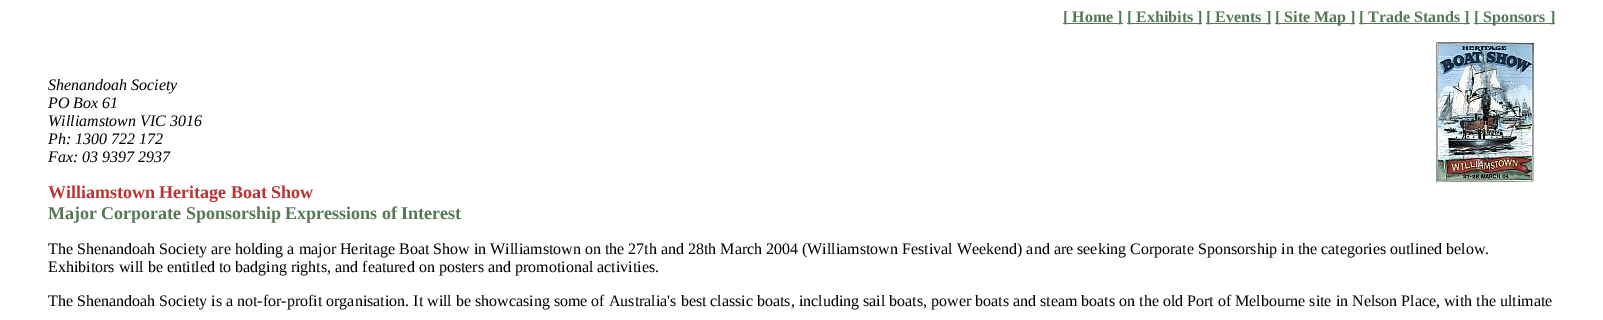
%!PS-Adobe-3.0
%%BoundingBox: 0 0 1603 320
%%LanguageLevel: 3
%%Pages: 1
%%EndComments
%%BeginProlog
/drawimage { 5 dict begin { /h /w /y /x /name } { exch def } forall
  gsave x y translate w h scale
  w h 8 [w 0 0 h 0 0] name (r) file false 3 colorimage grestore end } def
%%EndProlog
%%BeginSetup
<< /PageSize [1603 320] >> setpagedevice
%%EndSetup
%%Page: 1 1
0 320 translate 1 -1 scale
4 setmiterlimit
1 setgray
0 0 1603 320 rectfill
0.333 0.467 0.333 setrgbcolor
1063 23 60 1 rectfill
1127 23 75 1 rectfill
1206 23 65 1 rectfill
1275 23 80 1 rectfill
1359 23 111 1 rectfill
1474 23 81 1 rectfill
(images/1.raw) 1435 41 100 142 drawimage
/LiberationSerif-Bold [16 0 0 -16 0 0] selectfont
1063 22 moveto ([ Home ]) show
1127 22 moveto ([ Exhibits ]) show
1206 22 moveto ([ Events ]) show
1275 22 moveto ([ Site Map ]) show
1359 22 moveto ([ Trade Stands ]) show
1474 22 moveto ([ Sponsors ]) show
/LiberationSerif-Italic [16 0 0 -16 0 0] selectfont
0 setgray
48 90 moveto (Shenandoah Society) show
48 108 moveto (PO Box 61) show
48 126 moveto (Williamstown VIC 3016) show
48 144 moveto (Ph: 1300 722 172) show
48 162 moveto (Fax: 03 9397 2937) show
/LiberationSerif-Bold [18 0 0 -18 0 0] selectfont
0.733 0.2 0.2 setrgbcolor
48 198 moveto (Williamstown Heritage Boat Show) show
0.333 0.467 0.333 setrgbcolor
48 219 moveto (Major Corporate Sponsorship Expressions of Interest) show
/LiberationSerif-Regular [16 0 0 -16 0 0] selectfont
0 setgray
48 254 moveto (The Shenandoah Society are holding a major Heritage Boat Show in Williamstown on the 27th and 28th March 2004 \(Williamstown Festival Weekend\) and are seeking Corporate Sponsorship in the categories outlined below.) show
48 272 moveto (Exhibitors will be entitled to badging rights, and featured on posters and promotional activities.) show
48 306 moveto (The Shenandoah Society is a not-for-profit organisation. It will be showcasing some of Australia's best classic boats, including sail boats, power boats and steam boats on the old Port of Melbourne site in Nelson Place, with the ultimate) show
showpage
%%EOF
